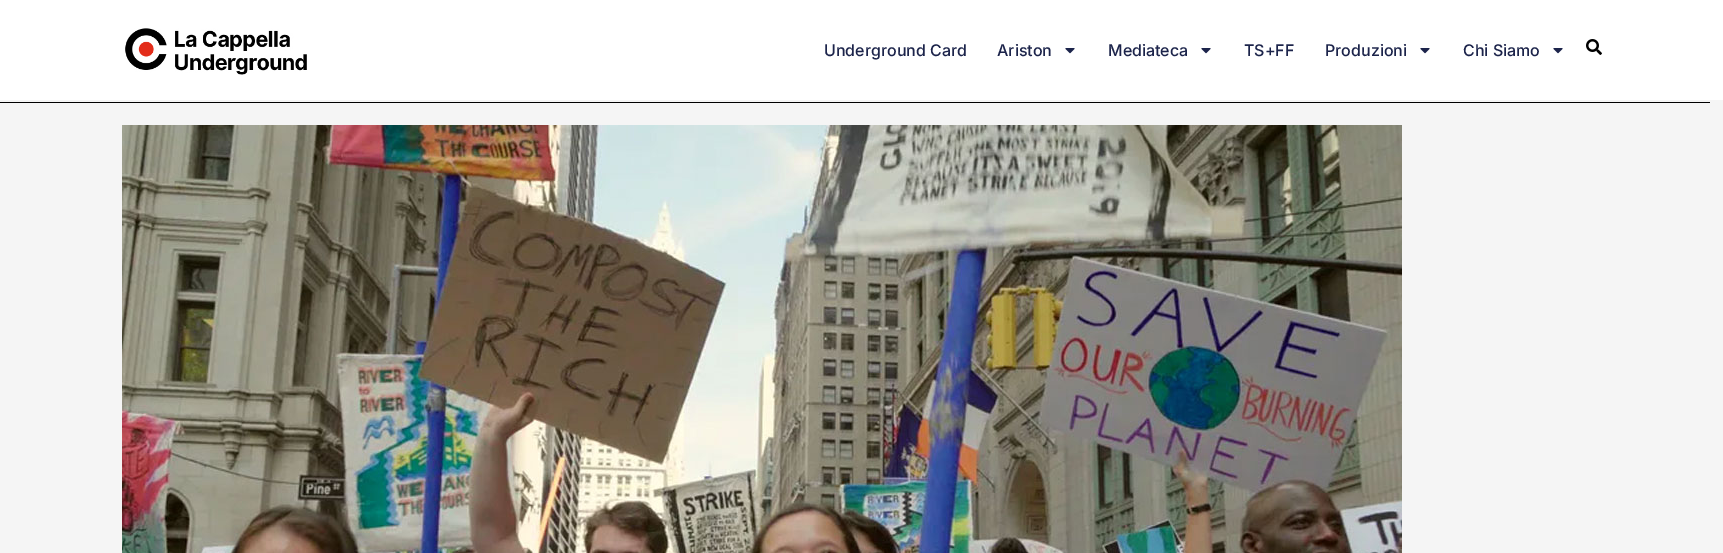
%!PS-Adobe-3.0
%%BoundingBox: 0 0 1723 553
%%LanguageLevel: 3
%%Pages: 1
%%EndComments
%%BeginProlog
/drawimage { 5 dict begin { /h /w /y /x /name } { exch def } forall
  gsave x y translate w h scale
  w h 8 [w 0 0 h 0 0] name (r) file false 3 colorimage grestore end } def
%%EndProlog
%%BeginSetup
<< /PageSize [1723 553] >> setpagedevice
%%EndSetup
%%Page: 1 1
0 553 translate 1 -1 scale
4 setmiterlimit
0.961 setgray
0 0 1723 553 rectfill
1 setgray
0 0 1723 100 rectfill
(images/1.raw) 125 28 182 47 drawimage
(images/2.raw) 1065 48 10 6 drawimage
(images/2.raw) 1201 48 10 6 drawimage
(images/2.raw) 1420 48 10 6 drawimage
(images/2.raw) 1553 48 10 6 drawimage
(images/3.raw) 1586 39 16 16 drawimage
0 setgray
0 102 1710 1 rectfill
(images/4.raw) 122 125 1280 428 drawimage
/Inter-Medium [16 0 0 -16 0 0] selectfont
0.11 0.141 0.294 setrgbcolor
824 56 moveto (Underground Card) show
997 56 moveto (Ariston) show
1108 56 moveto (Mediateca) show
1244 56 moveto (TS+FF) show
1325 56 moveto (Produzioni) show
1463 56 moveto (Chi Siamo) show
showpage
%%EOF
